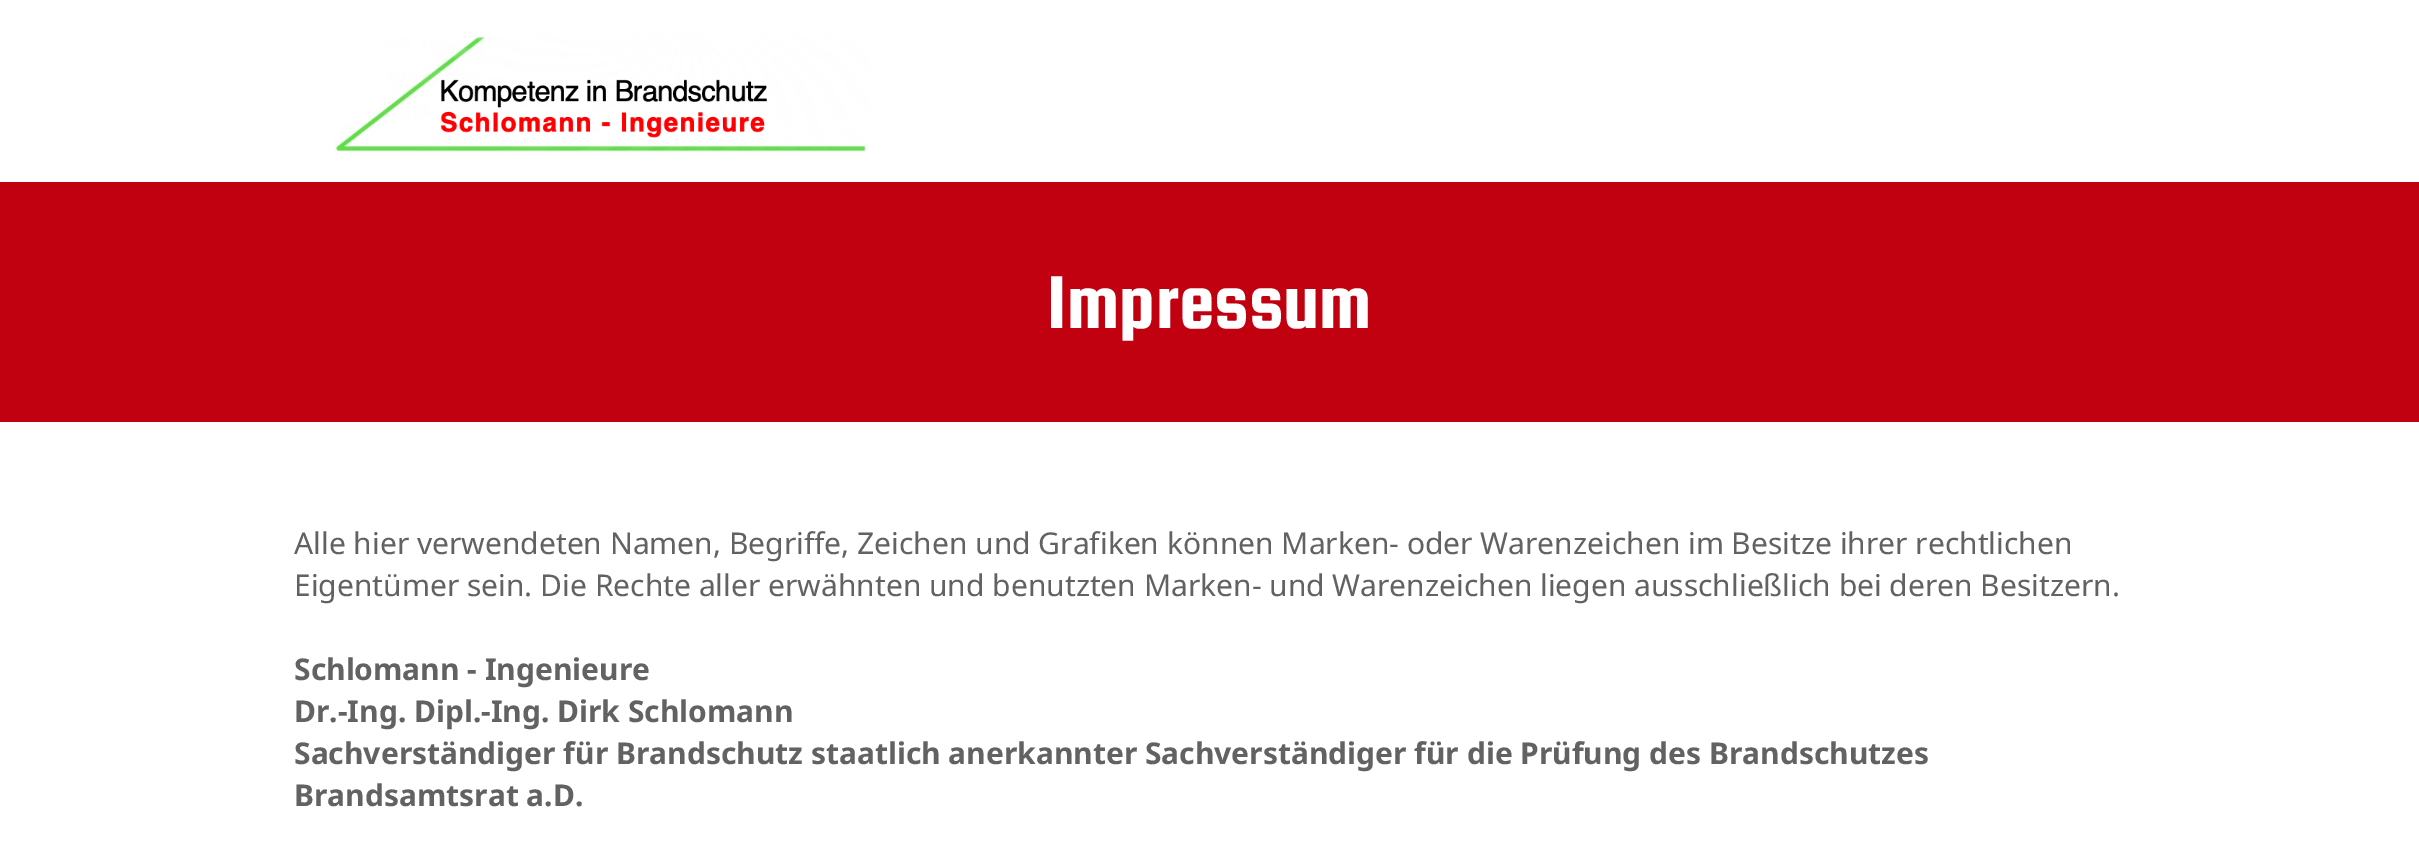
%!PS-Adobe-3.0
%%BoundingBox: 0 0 2419 841
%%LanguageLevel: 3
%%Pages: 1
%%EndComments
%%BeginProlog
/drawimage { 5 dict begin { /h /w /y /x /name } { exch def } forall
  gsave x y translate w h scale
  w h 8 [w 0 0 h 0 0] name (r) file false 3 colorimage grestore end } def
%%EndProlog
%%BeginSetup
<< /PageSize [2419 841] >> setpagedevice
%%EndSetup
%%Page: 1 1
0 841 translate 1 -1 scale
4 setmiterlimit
1 setgray
0 0 2419 841 rectfill
(images/1.raw) 334 34 536 120 drawimage
0.757 0.004 0.063 setrgbcolor
0 182 2419 240 rectfill
/SquadaOne-Regular [80 0 0 -80 0 0] selectfont
1 setgray
1047 328 moveto (Impressum) show
/NotoSans-Regular [30 0 0 -30 0 0] selectfont
0.384 setgray
294 554 moveto (Alle hier verwendeten Namen, Begriffe, Zeichen und Grafiken können Marken- oder Warenzeichen im Besitze ihrer rechtlichen) show
294 596 moveto (Eigentümer sein. Die Rechte aller erwähnten und benutzten Marken- und Warenzeichen liegen ausschließlich bei deren Besitzern.) show
/NotoSans-Bold [30 0 0 -30 0 0] selectfont
294 680 moveto (Schlomann - Ingenieure) show
294 722 moveto (Dr.-Ing. Dipl.-Ing. Dirk Schlomann) show
294 764 moveto (Sachverständiger für Brandschutz staatlich anerkannter Sachverständiger für die Prüfung des Brandschutzes) show
294 806 moveto (Brandsamtsrat a.D.) show
showpage
%%EOF
